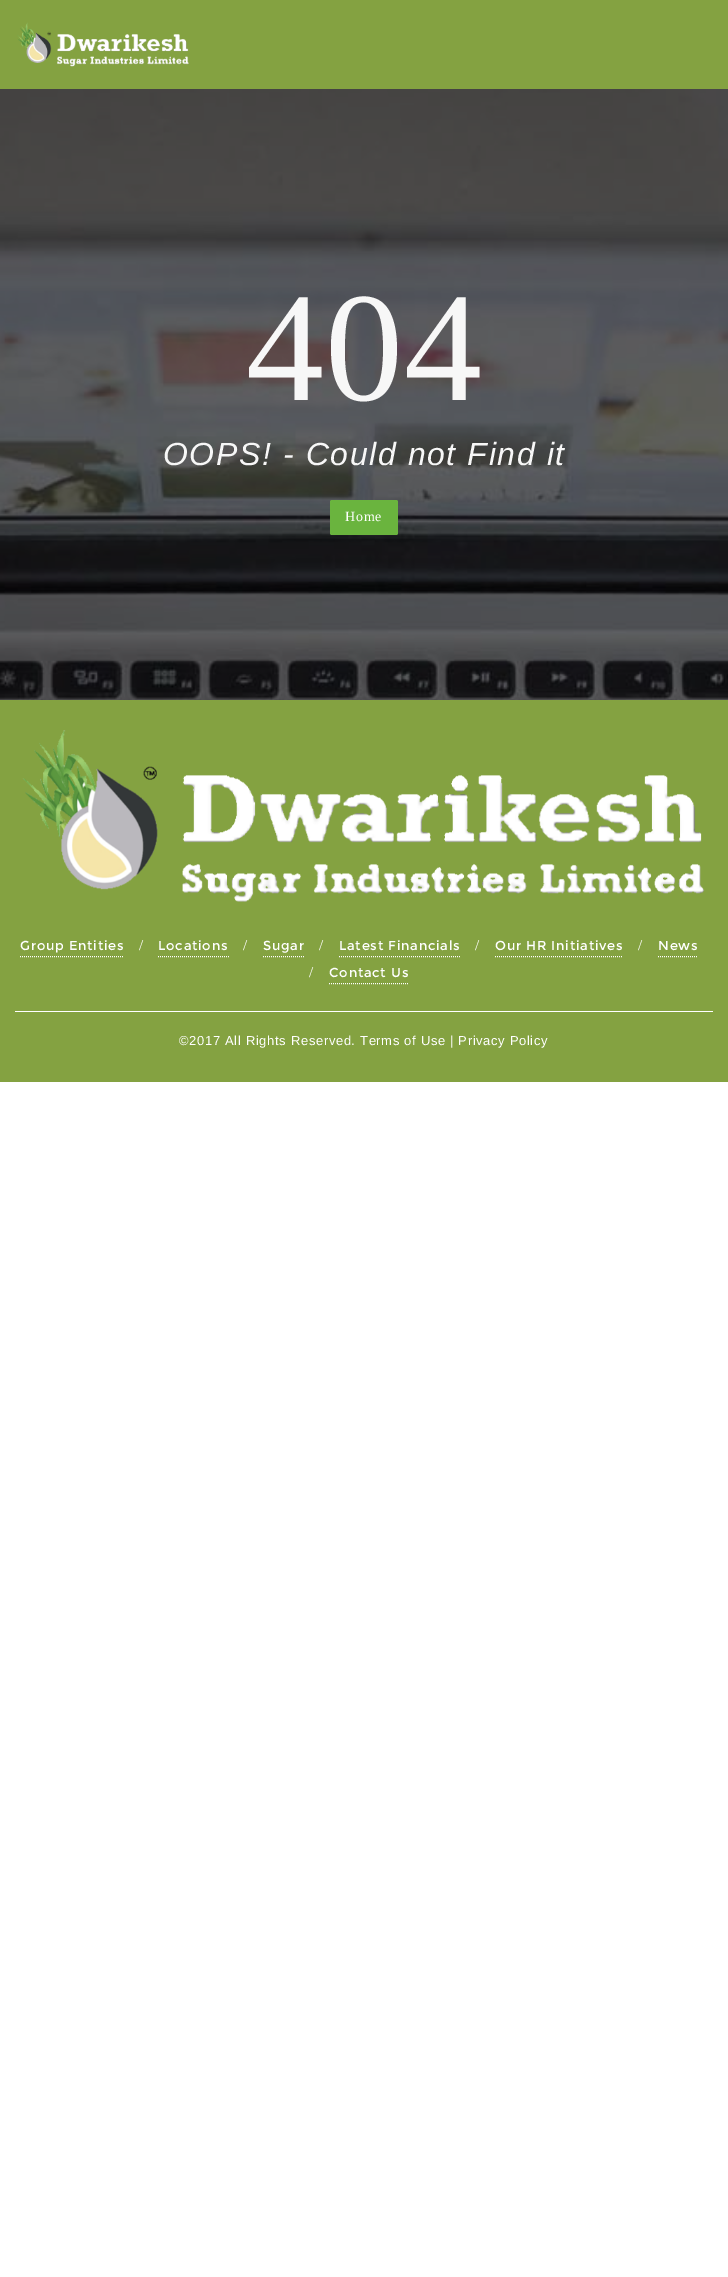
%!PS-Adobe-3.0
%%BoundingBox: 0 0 728 2277
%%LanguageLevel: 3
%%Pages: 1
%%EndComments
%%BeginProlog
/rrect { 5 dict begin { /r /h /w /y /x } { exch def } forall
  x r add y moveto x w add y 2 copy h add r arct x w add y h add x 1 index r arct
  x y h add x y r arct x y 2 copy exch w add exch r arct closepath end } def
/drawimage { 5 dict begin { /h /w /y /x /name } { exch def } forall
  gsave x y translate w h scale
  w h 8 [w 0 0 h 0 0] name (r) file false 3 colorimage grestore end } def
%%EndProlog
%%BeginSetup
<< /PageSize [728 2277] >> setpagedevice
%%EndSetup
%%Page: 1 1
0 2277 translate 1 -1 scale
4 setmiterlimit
1 setgray
0 0 728 2277 rectfill
0.518 0.635 0.255 setrgbcolor
0 0 728 89 rectfill
(images/1.raw) 17 22 172 45 drawimage
(images/2.raw) 0 89 728 611 drawimage
0.416 0.706 0.243 setrgbcolor
330 500 68 35 2 rrect fill
0.518 0.635 0.255 setrgbcolor
0 700 728 382 rectfill
(images/3.raw) 22 730 683 172 drawimage
1 setgray
[1 1] 0 setdash
newpath 20 956.5 moveto 124 956.5 lineto stroke
newpath 158 956.5 moveto 229 956.5 lineto stroke
newpath 263 956.5 moveto 305 956.5 lineto stroke
newpath 339 956.5 moveto 461 956.5 lineto stroke
newpath 495 956.5 moveto 623 956.5 lineto stroke
newpath 658 956.5 moveto 698 956.5 lineto stroke
newpath 329 983.5 moveto 409 983.5 lineto stroke
15 1011 698 1 rectfill
/LiberationSerif-Regular [156 0 0 -156 0 0] selectfont
0.969 setgray
246 400 moveto 0.75 0 (404) ashow
/LiberationSans-Italic [32 0 0 -32 0 0] selectfont
163 465 moveto 1.6 0 (OOPS! - Could not Find it) ashow
/LiberationSerif-Regular [14 0 0 -14 0 0] selectfont
1 setgray
345 521 moveto 0.75 0 (Home) ashow
/Montserrat-Regular [13 0 0 -13 0 0] selectfont
20 950 moveto 0.75 0 (Group Entities) ashow
/LiberationSerif-Regular [15 0 0 -15 0 0] selectfont
139 950 moveto 0.75 0 (/) ashow
/Montserrat-Regular [13 0 0 -13 0 0] selectfont
158 950 moveto 0.75 0 (Locations) ashow
/LiberationSerif-Regular [15 0 0 -15 0 0] selectfont
243 950 moveto 0.75 0 (/) ashow
/Montserrat-Regular [13 0 0 -13 0 0] selectfont
263 950 moveto 0.75 0 (Sugar) ashow
/LiberationSerif-Regular [15 0 0 -15 0 0] selectfont
319 950 moveto 0.75 0 (/) ashow
/Montserrat-Regular [13 0 0 -13 0 0] selectfont
339 950 moveto 0.75 0 (Latest Financials) ashow
/LiberationSerif-Regular [15 0 0 -15 0 0] selectfont
475 950 moveto 0.75 0 (/) ashow
/Montserrat-Regular [13 0 0 -13 0 0] selectfont
495 950 moveto 0.75 0 (Our HR Initiatives) ashow
/LiberationSerif-Regular [15 0 0 -15 0 0] selectfont
638 950 moveto 0.75 0 (/) ashow
/Montserrat-Regular [13 0 0 -13 0 0] selectfont
658 950 moveto 0.75 0 (News) ashow
/LiberationSerif-Regular [15 0 0 -15 0 0] selectfont
309 977 moveto 0.75 0 (/) ashow
/Montserrat-Regular [13 0 0 -13 0 0] selectfont
329 977 moveto 0.75 0 (Contact Us) ashow
/LiberationSans-Regular [13 0 0 -13 0 0] selectfont
179 1045 moveto 0.65 0 (©2017 All Rights Reserved. Terms of Use | Privacy Policy) ashow
showpage
%%EOF
